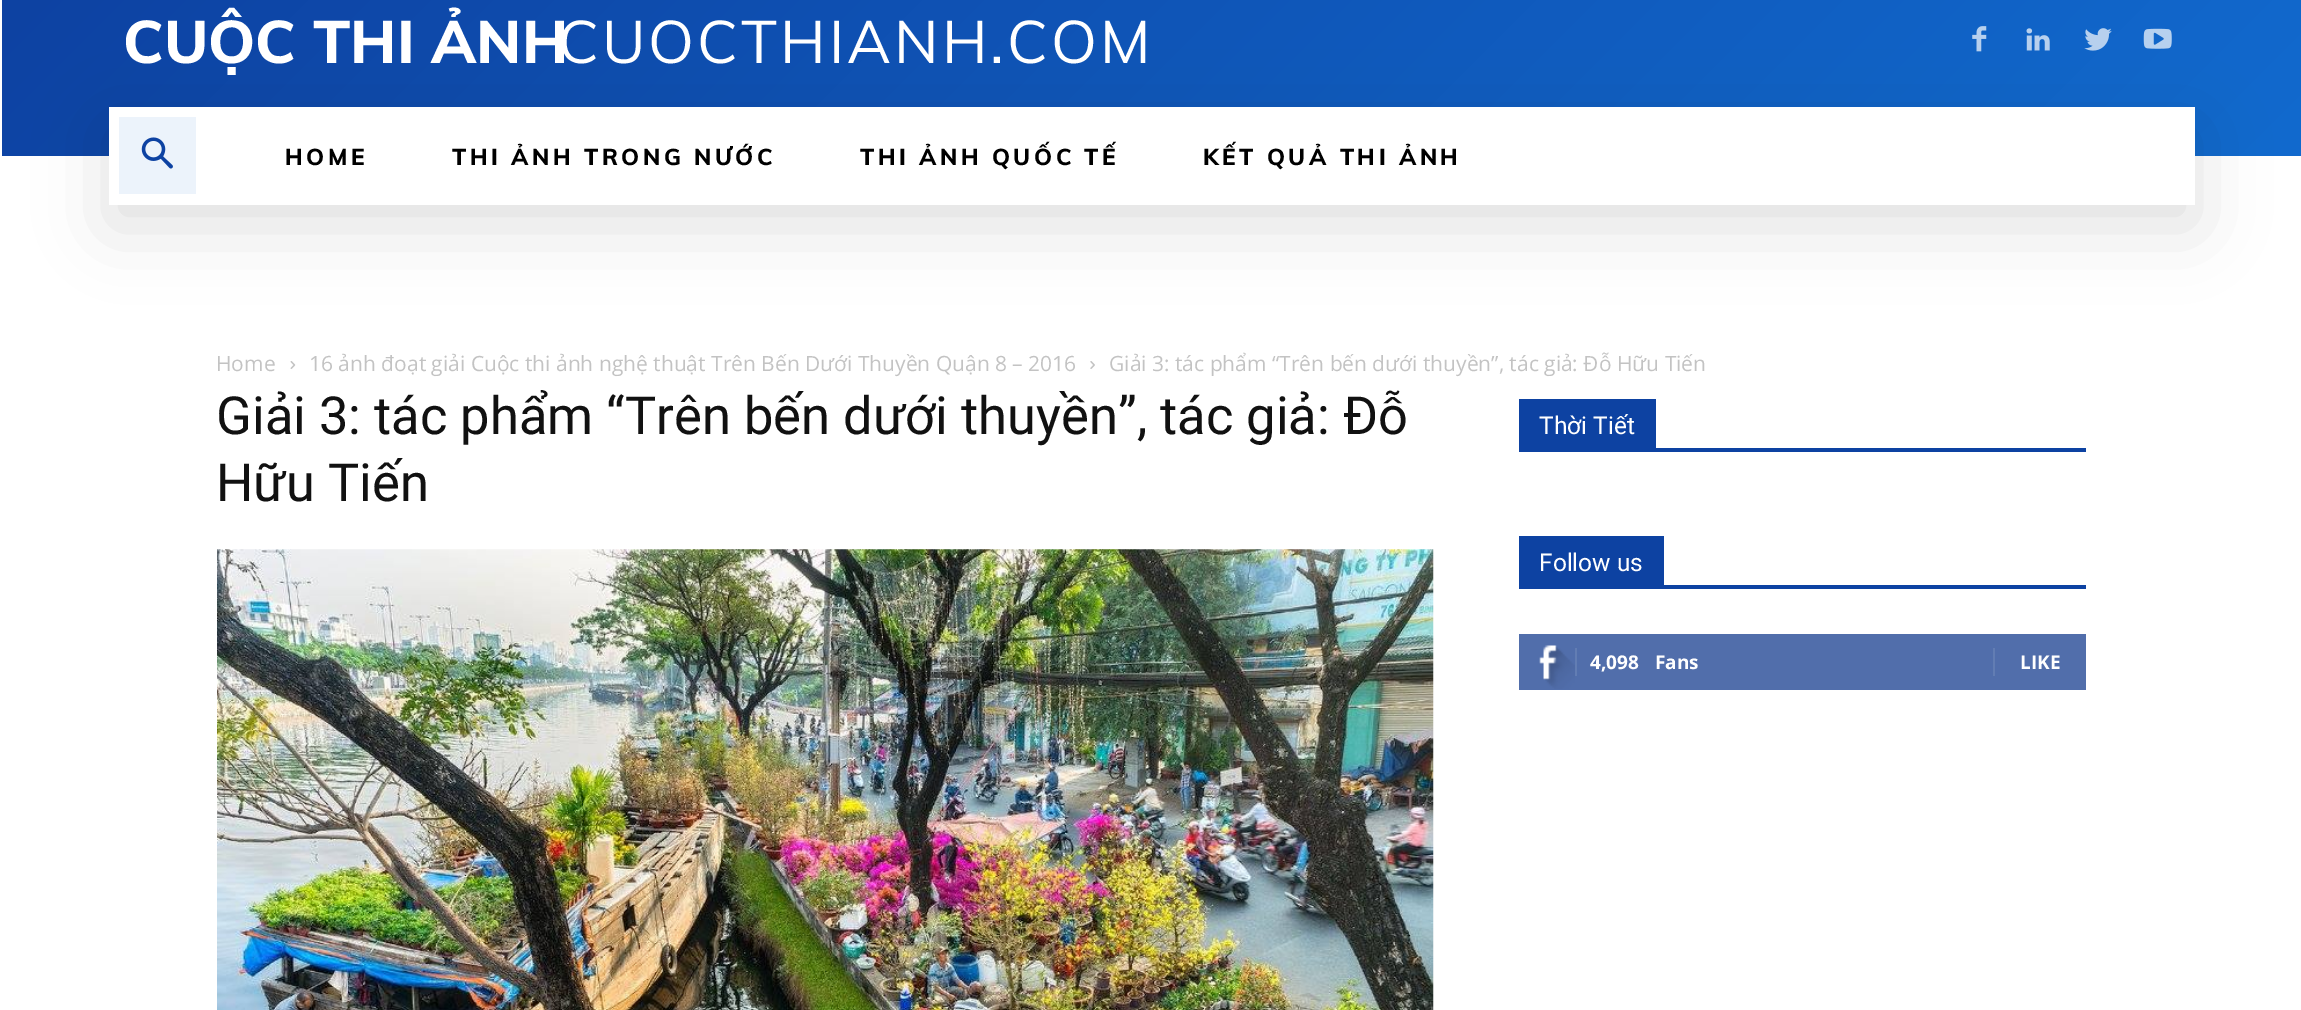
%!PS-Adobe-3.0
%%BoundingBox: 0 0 2301 1010
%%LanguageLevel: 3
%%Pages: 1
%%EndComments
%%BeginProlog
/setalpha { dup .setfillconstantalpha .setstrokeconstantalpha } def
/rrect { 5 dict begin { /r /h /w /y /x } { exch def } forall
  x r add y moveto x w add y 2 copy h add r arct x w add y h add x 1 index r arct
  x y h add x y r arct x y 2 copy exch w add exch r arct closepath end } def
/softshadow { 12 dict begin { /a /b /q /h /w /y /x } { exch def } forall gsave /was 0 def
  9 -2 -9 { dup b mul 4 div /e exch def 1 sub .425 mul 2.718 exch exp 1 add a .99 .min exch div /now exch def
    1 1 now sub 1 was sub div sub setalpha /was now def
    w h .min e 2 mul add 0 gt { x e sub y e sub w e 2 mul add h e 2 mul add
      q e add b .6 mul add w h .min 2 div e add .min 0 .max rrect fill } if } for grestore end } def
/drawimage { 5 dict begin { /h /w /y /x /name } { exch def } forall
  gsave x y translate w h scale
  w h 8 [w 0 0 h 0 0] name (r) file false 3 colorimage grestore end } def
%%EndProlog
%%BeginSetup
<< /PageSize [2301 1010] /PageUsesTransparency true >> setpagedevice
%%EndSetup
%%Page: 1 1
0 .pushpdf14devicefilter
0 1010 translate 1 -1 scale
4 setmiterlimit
1 setgray
0 0 2301 1010 rectfill
gsave newpath 2 0 moveto 2301 0 lineto 2301 156 lineto 2 156 lineto closepath clip newpath
<< /ShadingType 2 /ColorSpace /DeviceRGB /Coords [1771 686 532 -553] /Extend [true true] /Function << /FunctionType 2 /Domain [0 1] /C0 [0.067 0.416 0.808] /C1 [0.051 0.259 0.635] /N 1 >> >> shfill grestore
(images/1.raw) 1972 26 15 26 drawimage
(images/2.raw) 2026 28 24 23 drawimage
(images/3.raw) 2084 28 28 23 drawimage
(images/4.raw) 2143 28 29 21 drawimage
0 setgray
109 128 2086 98 0 35 0.12 softshadow
1 setgray
109 107 2086 98 rectfill
0.925 0.953 0.984 setrgbcolor
119 117 77 77 rectfill
(images/5.raw) 141 137 32 32 drawimage
(images/6.raw) 290 361 6 8 drawimage
(images/7.raw) 1090 361 5 8 drawimage
(images/8.raw) 217 549 1217 461 drawimage
0.051 0.259 0.635 setrgbcolor
1519 448 567 4 rectfill
1519 399 137 49 rectfill
1519 585 567 4 rectfill
1519 536 145 49 rectfill
0.318 0.431 0.671 setrgbcolor
1519 634 567 56 rectfill
(images/9.raw) 1539 645 36 44 drawimage
0.384 0.49 0.702 setrgbcolor
1575 648 2 28 rectfill
1993 648 2 28 rectfill
/Muli-ExtraBold [59.5 0 0 -59.5 0 0] selectfont
1 setgray
123 63 moveto (CUỘC THI ẢNH) show
/Muli-Regular [59.5 0 0 -59.5 0 0] selectfont
558 63 moveto 3.1 0 (CUOCTHIANH.COM) ashow
/Muli-ExtraBold [22.75 0 0 -22.75 0 0] selectfont
0 setgray
285 165 moveto 3.5 0 (HOME) ashow
452 165 moveto 3.5 0 (THI ẢNH TRONG NƯỚC) ashow
860 165 moveto 3.5 0 (THI ẢNH QUỐC TẾ) ashow
1203 165 moveto 3.5 0 (KẾT QUẢ THI ẢNH) ashow
/OpenSans-Regular [21 0 0 -21 0 0] selectfont
0.765 setgray
216 371 moveto (Home) show
309 371 moveto (16 ảnh đoạt giải Cuộc thi ảnh nghệ thuật Trên Bến Dưới Thuyền Quận 8 – 2016) show
1109 371 moveto (Giải 3: tác phẩm “Trên bến dưới thuyền”, tác giả: Đỗ Hữu Tiến) show
/Roboto-Regular [52.5 0 0 -52.5 0 0] selectfont
0.067 setgray
216 434 moveto (Giải 3: tác phẩm “Trên bến dưới thuyền”, tác giả: Đỗ) show
216 501 moveto (Hữu Tiến) show
/Roboto-Regular [24.5 0 0 -24.5 0 0] selectfont
1 setgray
1539 434 moveto (Thời Tiết) show
1539 571 moveto (Follow us) show
/OpenSans-Bold [19 0 0 -19 0 0] selectfont
1590 669 moveto (4,098) show
1655 669 moveto (Fans) show
2020 669 moveto (LIKE) show
.poppdf14devicefilter showpage
%%EOF
